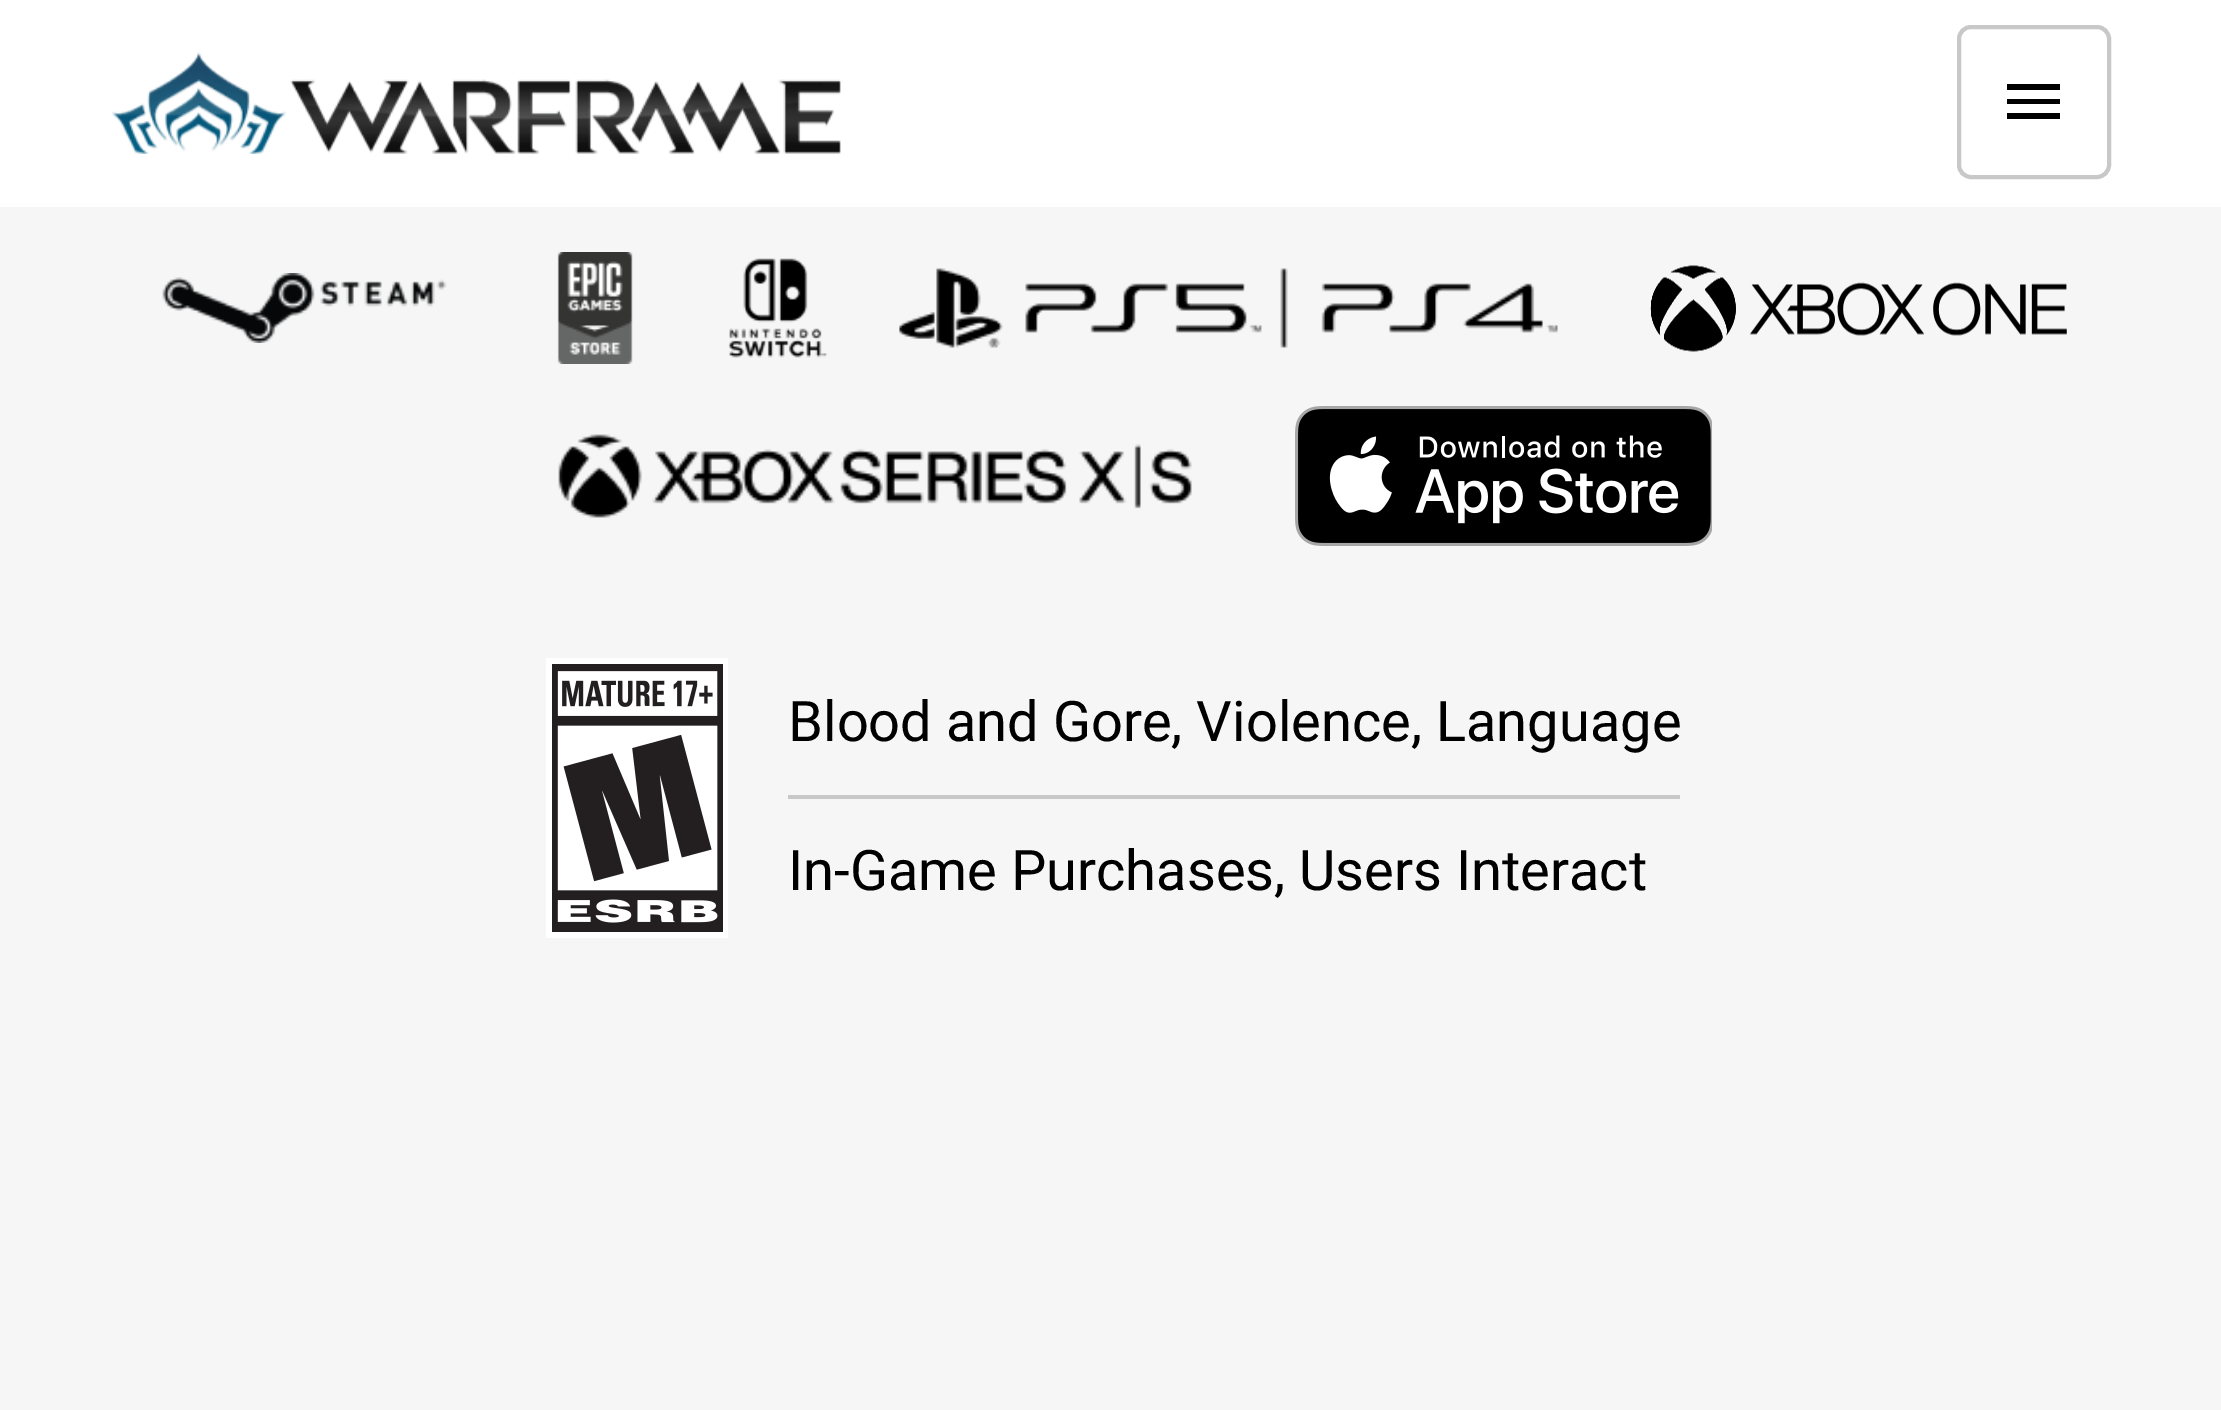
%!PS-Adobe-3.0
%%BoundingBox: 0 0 2221 1410
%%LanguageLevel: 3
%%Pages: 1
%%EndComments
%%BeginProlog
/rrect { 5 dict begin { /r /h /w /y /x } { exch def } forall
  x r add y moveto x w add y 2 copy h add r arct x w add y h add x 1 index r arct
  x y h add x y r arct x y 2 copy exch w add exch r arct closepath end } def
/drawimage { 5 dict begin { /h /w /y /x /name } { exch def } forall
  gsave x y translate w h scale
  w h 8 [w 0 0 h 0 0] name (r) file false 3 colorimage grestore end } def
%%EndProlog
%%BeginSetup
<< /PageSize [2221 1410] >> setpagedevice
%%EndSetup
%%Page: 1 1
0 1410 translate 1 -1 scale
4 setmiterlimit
0.965 setgray
0 0 2221 1410 rectfill
1 setgray
0 0 2221 203 rectfill
(images/1.raw) 112 52 729 102 drawimage
0.784 setgray
4 setlinewidth
1959 27 150 150 12 rrect stroke
0 setgray
newpath 2007 119 moveto 2060 119 lineto 2060 113 lineto 2007 113 lineto closepath 2007 104 moveto 2060 104 lineto 2060 99 lineto 2007 99 lineto closepath 2007 84 moveto 2007 90 lineto 2060 90 lineto 2060 84 lineto closepath fill
0.996 setgray
0 203 2221 4 rectfill
(images/2.raw) 162 273 285 70 drawimage
(images/3.raw) 557 252 76 112 drawimage
(images/4.raw) 728 258 99 100 drawimage
(images/5.raw) 899 268 659 80 drawimage
(images/6.raw) 1650 265 417 87 drawimage
(images/7.raw) 558 434 634 84 drawimage
(images/8.raw) 1295 406 417 140 drawimage
(images/9.raw) 546 658 182 280 drawimage
0.784 setgray
788 795 892 4 rectfill
/Roboto-Regular [56 0 0 -56 0 0] selectfont
0 setgray
788 741 moveto (Blood and Gore, Violence, Language) show
788 890 moveto (In-Game Purchases, Users Interact) show
showpage
%%EOF
